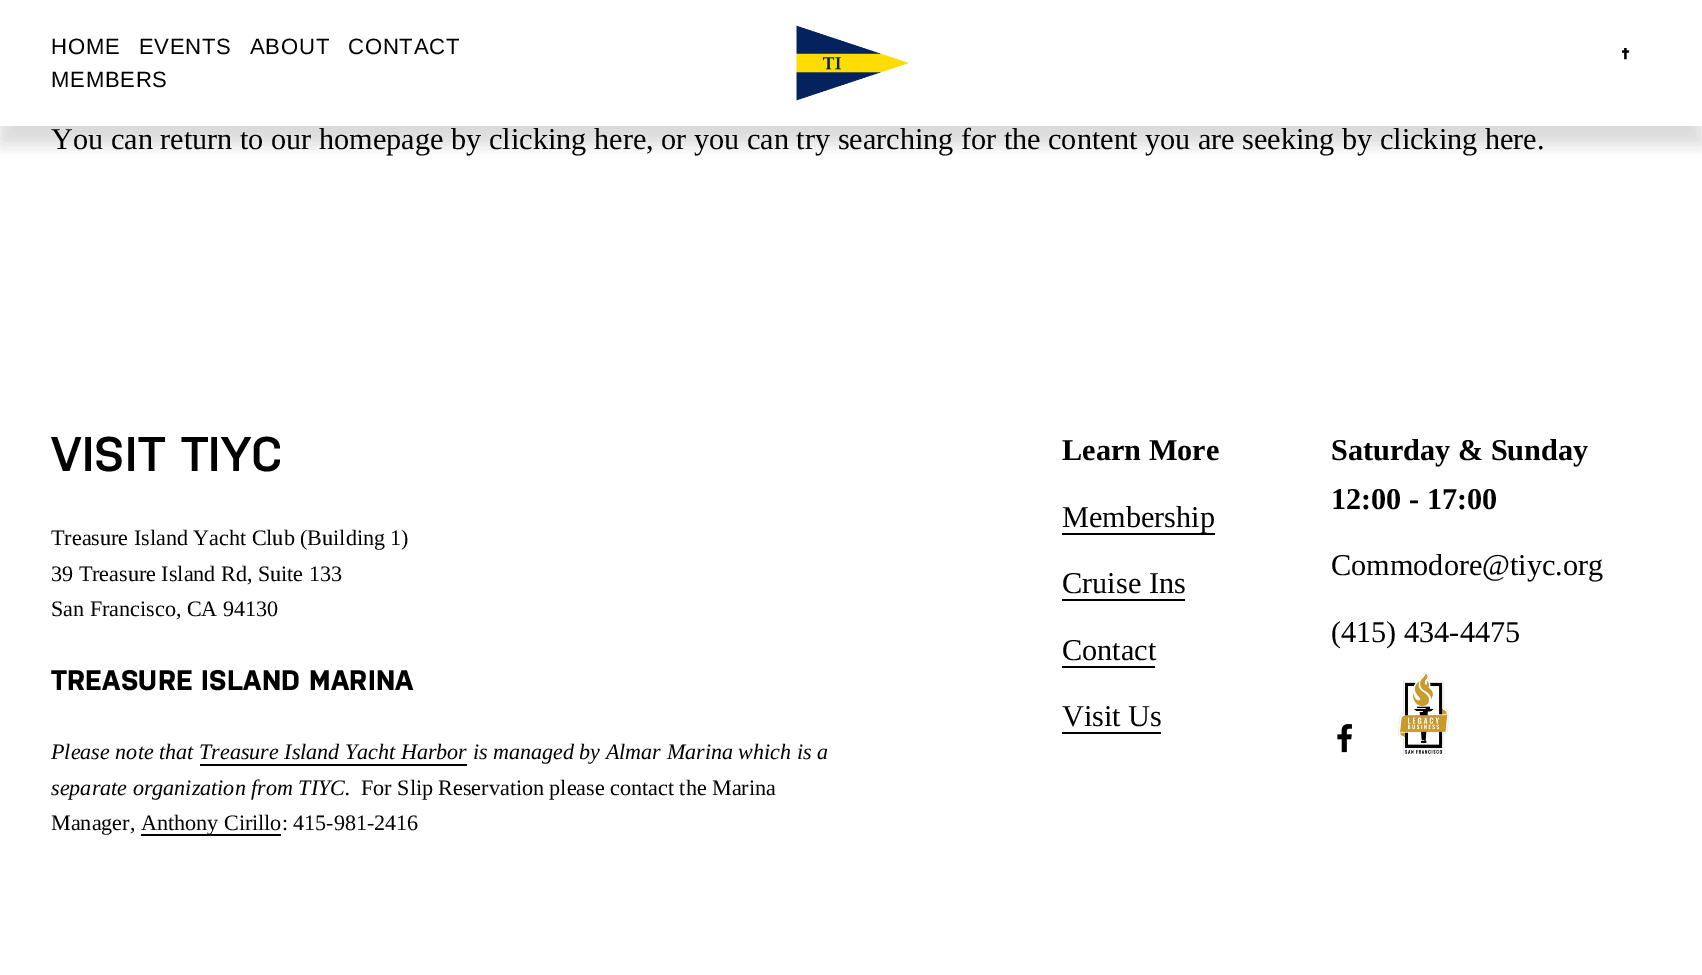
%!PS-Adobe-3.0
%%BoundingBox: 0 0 1702 975
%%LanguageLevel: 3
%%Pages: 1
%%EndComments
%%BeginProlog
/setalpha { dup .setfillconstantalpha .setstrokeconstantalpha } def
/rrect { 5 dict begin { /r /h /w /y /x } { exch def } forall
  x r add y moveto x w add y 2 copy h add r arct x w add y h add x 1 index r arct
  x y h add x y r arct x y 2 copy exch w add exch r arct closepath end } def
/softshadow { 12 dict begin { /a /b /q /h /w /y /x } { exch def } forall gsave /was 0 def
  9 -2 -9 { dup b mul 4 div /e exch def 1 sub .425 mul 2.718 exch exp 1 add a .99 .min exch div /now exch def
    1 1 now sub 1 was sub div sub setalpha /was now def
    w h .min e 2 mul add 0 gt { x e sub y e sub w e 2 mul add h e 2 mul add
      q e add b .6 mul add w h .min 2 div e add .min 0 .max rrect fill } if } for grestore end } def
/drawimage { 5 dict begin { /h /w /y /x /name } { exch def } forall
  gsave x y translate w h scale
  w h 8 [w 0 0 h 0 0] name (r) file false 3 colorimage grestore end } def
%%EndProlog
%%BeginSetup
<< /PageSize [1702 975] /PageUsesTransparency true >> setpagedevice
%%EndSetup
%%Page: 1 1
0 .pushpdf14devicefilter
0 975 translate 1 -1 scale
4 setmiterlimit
1 setgray
0 0 1702 975 rectfill
gsave
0 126 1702 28 rectclip
0 setgray
0 18 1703 126 0 9 0.15 softshadow
grestore
(images/1.raw) 796 25 113 76 drawimage
(images/2.raw) 1622 48 8 12 drawimage
0 setgray
200 764 267 2 rectfill
141 834 140 2 rectfill
1062 533 153 2 rectfill
1062 599 123 2 rectfill
1062 666 93 2 rectfill
1062 732 99 2 rectfill
(images/3.raw) 1337 724 15 29 drawimage
(images/4.raw) 1398 671 51 85 drawimage
/LiberationSans-Regular [22.1 0 0 -22.1 0 0] selectfont
51 54 moveto 0.75 0 (HOME) ashow
139 54 moveto 0.75 0 (EVENTS) ashow
250 54 moveto 0.75 0 (ABOUT) ashow
348 54 moveto 0.75 0 (CONTACT) ashow
51 87 moveto 0.75 0 (MEMBERS) ashow
/LiberationSerif-Regular [30.25 0 0 -30.25 0 0] selectfont
51 149 moveto (You can return to our homepage by) show
489 149 moveto (clicking here, or you can try searching for the) show
1048 149 moveto (content you are seeking by clicking here.) show
/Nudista-SemiBold [48.5 0 0 -48.5 0 0] selectfont
51 471 moveto 0.5 0 (VISIT TIYC) ashow
/LiberationSerif-Regular [22.1 0 0 -22.1 0 0] selectfont
51 545 moveto (Treasure Island Yacht Club \(Building 1\)) show
51 581 moveto (39 Treasure Island Rd, Suite 133) show
51 616 moveto (San Francisco, CA 94130) show
/Nudista-Bold [28.25 0 0 -28.25 0 0] selectfont
51 690 moveto 0.25 0 (TREASURE ISLAND MARINA) ashow
/LiberationSerif-Italic [22.1 0 0 -22.1 0 0] selectfont
51 759 moveto (Please note that Treasure Island Yacht Harbor is managed by Almar Marina which is a) show
51 795 moveto (separate organization from TIYC.) show
/LiberationSerif-Regular [22.1 0 0 -22.1 0 0] selectfont
361 795 moveto (For Slip Reservation please contact the Marina) show
51 830 moveto (Manager,) show
141 830 moveto (Anthony Cirillo: 415-981-2416) show
/LiberationSerif-Bold [30.25 0 0 -30.25 0 0] selectfont
1062 460 moveto (Learn More) show
/LiberationSerif-Regular [30.25 0 0 -30.25 0 0] selectfont
1062 527 moveto (Membership) show
1062 593 moveto (Cruise Ins) show
1062 660 moveto (Contact) show
1062 726 moveto (Visit Us) show
/LiberationSerif-Bold [30.25 0 0 -30.25 0 0] selectfont
1331 460 moveto (Saturday & Sunday) show
1331 509 moveto (12:00 - 17:00) show
/LiberationSerif-Regular [30.25 0 0 -30.25 0 0] selectfont
1331 575 moveto (Commodore@tiyc.org) show
1331 642 moveto (\(415\) 434-4475) show
.poppdf14devicefilter showpage
%%EOF
